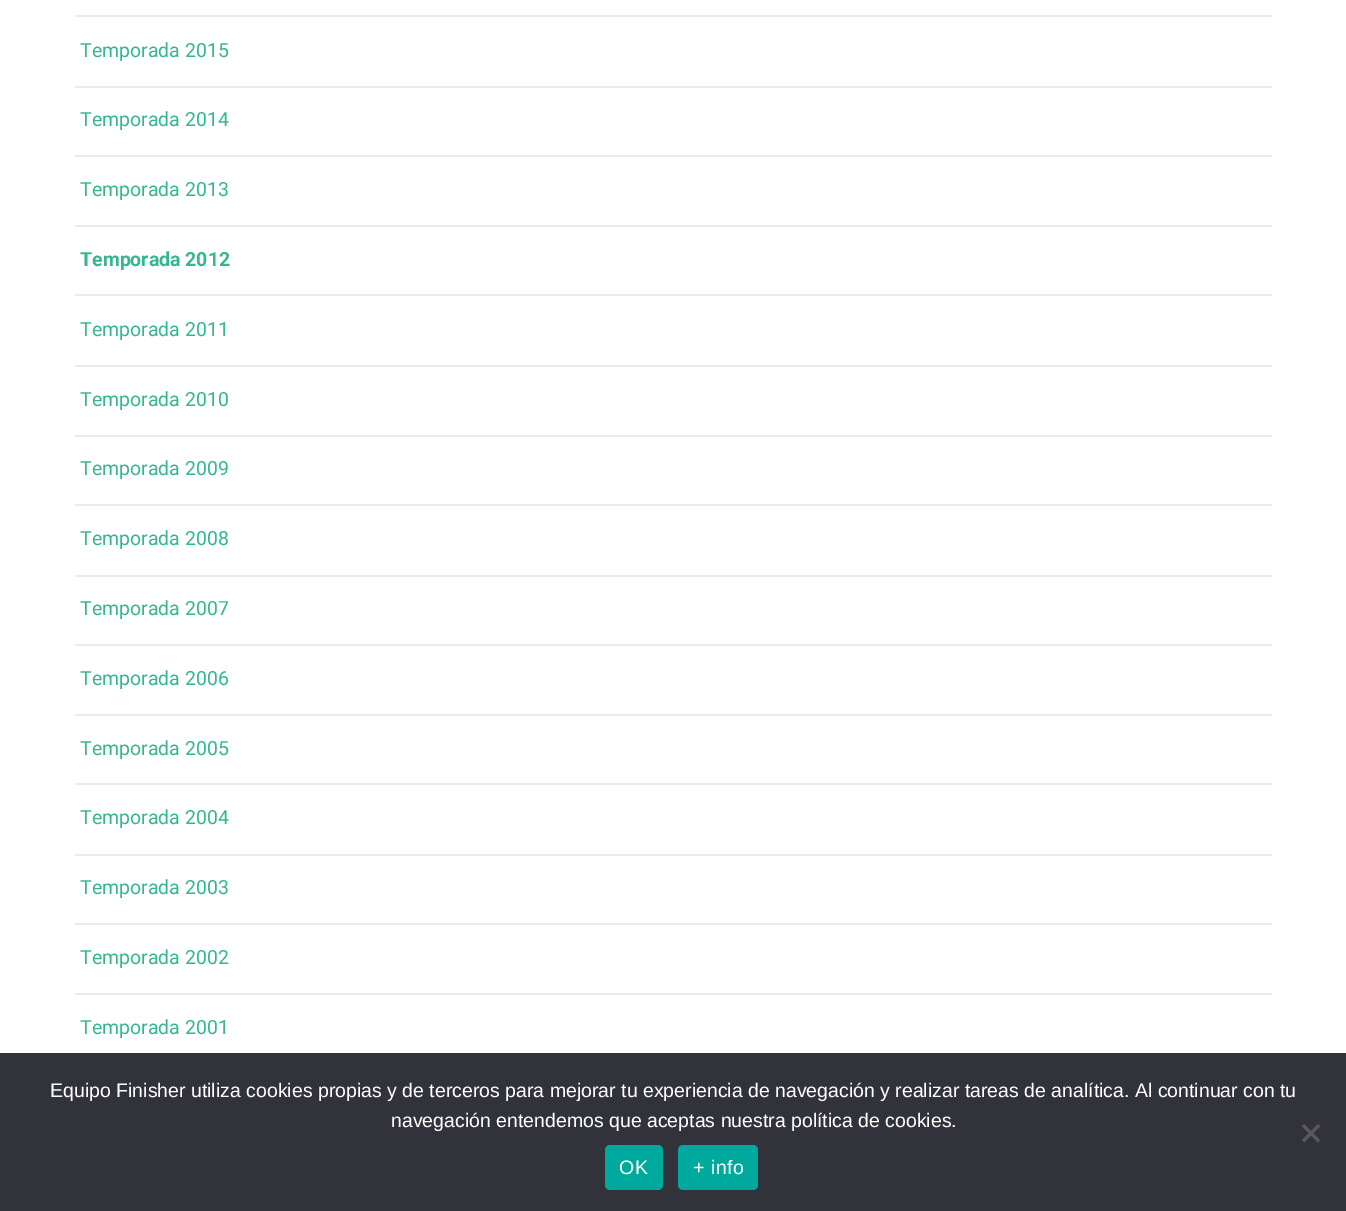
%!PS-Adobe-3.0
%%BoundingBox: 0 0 1346 1211
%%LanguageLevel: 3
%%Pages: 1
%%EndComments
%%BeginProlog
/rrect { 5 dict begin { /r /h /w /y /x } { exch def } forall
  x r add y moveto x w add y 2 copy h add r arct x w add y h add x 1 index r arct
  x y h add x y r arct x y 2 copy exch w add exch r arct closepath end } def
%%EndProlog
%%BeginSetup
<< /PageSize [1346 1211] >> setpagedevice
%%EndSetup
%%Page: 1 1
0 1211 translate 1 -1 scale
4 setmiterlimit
1 setgray
0 0 1346 1211 rectfill
0.922 setgray
75 15 1197 2 rectfill
75 86 1197 2 rectfill
75 155 1197 2 rectfill
75 225 1197 2 rectfill
75 294 1197 2 rectfill
75 365 1197 2 rectfill
75 435 1197 2 rectfill
75 504 1197 2 rectfill
75 575 1197 2 rectfill
75 644 1197 2 rectfill
75 714 1197 2 rectfill
75 783 1197 2 rectfill
75 854 1197 2 rectfill
75 923 1197 2 rectfill
75 993 1197 2 rectfill
0.196 0.196 0.227 setrgbcolor
0 1053 1346 158 rectfill
0.349 0.349 0.365 setrgbcolor
newpath 1318 1124 moveto 1320 1126.5 lineto 1304 1142.5 lineto 1302 1140 lineto closepath fill
newpath 1302 1126.5 moveto 1304 1124 lineto 1320 1140 lineto 1318 1142.5 lineto closepath fill
0 0.663 0.616 setrgbcolor
605 1145 58 45 5 rrect fill
678 1145 80 45 5 rrect fill
/Roboto-Regular [19.5 0 0 -19.5 0 0] selectfont
0.204 0.718 0.565 setrgbcolor
80 57 moveto (Temporada 2015) show
80 126 moveto (Temporada 2014) show
80 196 moveto (Temporada 2013) show
/Roboto-Bold [19.5 0 0 -19.5 0 0] selectfont
80 266 moveto (Temporada 2012) show
/Roboto-Regular [19.5 0 0 -19.5 0 0] selectfont
80 336 moveto (Temporada 2011) show
80 406 moveto (Temporada 2010) show
80 475 moveto (Temporada 2009) show
80 545 moveto (Temporada 2008) show
80 615 moveto (Temporada 2007) show
80 685 moveto (Temporada 2006) show
80 755 moveto (Temporada 2005) show
80 824 moveto (Temporada 2004) show
80 894 moveto (Temporada 2003) show
80 964 moveto (Temporada 2002) show
80 1034 moveto (Temporada 2001) show
/LiberationSans-Regular [19.5 0 0 -19.5 0 0] selectfont
1 setgray
50 1097 moveto (Equipo Finisher utiliza cookies propias y de terceros para mejorar tu experiencia de navegación y realizar tareas de analítica. Al continuar con tu) show
391 1127 moveto (navegación entendemos que aceptas nuestra política de cookies.) show
619 1174 moveto 0.5 0 (OK) ashow
693 1174 moveto 0.5 0 (+ info) ashow
showpage
%%EOF
